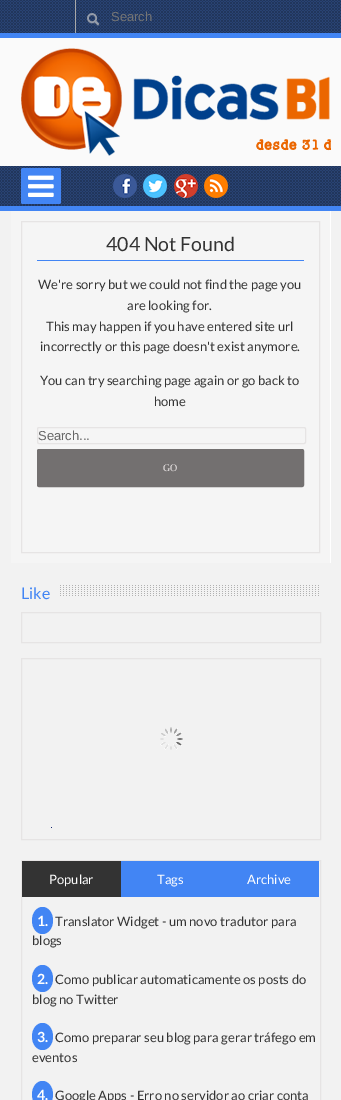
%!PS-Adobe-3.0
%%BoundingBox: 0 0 341 1100
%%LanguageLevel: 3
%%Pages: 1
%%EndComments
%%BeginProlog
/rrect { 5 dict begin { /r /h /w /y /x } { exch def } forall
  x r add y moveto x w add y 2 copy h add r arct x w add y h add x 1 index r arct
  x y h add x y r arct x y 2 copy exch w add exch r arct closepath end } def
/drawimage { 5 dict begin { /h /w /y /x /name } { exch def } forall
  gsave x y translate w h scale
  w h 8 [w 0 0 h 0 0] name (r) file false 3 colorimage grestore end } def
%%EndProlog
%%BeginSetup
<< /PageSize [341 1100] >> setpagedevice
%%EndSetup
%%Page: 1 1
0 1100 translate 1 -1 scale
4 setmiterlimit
0.949 setgray
0 0 341 1100 rectfill
0.161 0.263 0.451 setrgbcolor
0 0 341 33 rectfill
(images/1.raw) 0 0 341 33 drawimage
0.259 0.522 0.957 setrgbcolor
0 33 341 5 rectfill
(images/2.raw) 87 13 13 14 drawimage
0.659 setgray
75 0 1 33 rectfill
0.98 setgray
0 38 341 128 rectfill
(images/3.raw) 21 48 310 108 drawimage
0.161 0.263 0.451 setrgbcolor
0 166 341 40 rectfill
(images/4.raw) 0 166 341 40 drawimage
0.259 0.522 0.957 setrgbcolor
0 206 341 5 rectfill
21 168 40 36 2 rrect fill
(images/5.raw) 28 175 26 22 drawimage
(images/6.raw) 113 174 24 24 drawimage
(images/7.raw) 143 174 24 24 drawimage
(images/8.raw) 174 174 24 24 drawimage
(images/9.raw) 204 174 24 24 drawimage
0.961 setgray
11 211 319 352 rectfill
1 setgray
330 211 1 352 rectfill
0.902 0.894 0.894 setrgbcolor
21.5 221.5 298 331 rectstroke
0.259 0.522 0.957 setrgbcolor
37 260 267 1 rectfill
0.902 0.894 0.894 setrgbcolor
37.5 427.5 268 16 1.5 rrect stroke
0.451 0.439 0.439 setrgbcolor
37.5 449.5 266 37 1.5 rrect gsave fill grestore
stroke
(images/10.raw) 60 585 259 11 drawimage
0.902 0.894 0.894 setrgbcolor
21.5 612.5 299 30 rectstroke
21.5 658.5 299 181 rectstroke
(images/11.raw) 160 727 23 23 drawimage
0.078 0.157 0.431 setrgbcolor
51 827 1 1 rectfill
0.902 0.894 0.894 setrgbcolor
21.5 860.5 299 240 rectstroke
0.2 setgray
22 861 99 36 rectfill
0.259 0.522 0.957 setrgbcolor
121 861 198 36 rectfill
newpath 42.5 907 moveto 48.5 907 53 913 53 920.5 curveto 53 928 48.5 934 42.5 934 curveto 36.5 934 32 928 32 920.5 curveto 32 913 36.5 907 42.5 907 curveto closepath fill
newpath 42.5 965 moveto 48.5 965 53 971 53 978.5 curveto 53 986 48.5 992 42.5 992 curveto 36.5 992 32 986 32 978.5 curveto 32 971 36.5 965 42.5 965 curveto closepath fill
newpath 42.5 1023 moveto 48.5 1023 53 1029 53 1036.5 curveto 53 1044 48.5 1050 42.5 1050 curveto 36.5 1050 32 1044 32 1036.5 curveto 32 1029 36.5 1023 42.5 1023 curveto closepath fill
newpath 42.5 1081 moveto 48.5 1081 53 1087 53 1094.5 curveto 53 1102 48.5 1108 42.5 1108 curveto 36.5 1108 32 1102 32 1094.5 curveto 32 1087 36.5 1081 42.5 1081 curveto closepath fill
/LiberationSans-Regular [13 0 0 -13 0 0] selectfont
0.459 setgray
111 21 moveto (Search) show
/Lato-Regular [19.5 0 0 -19.5 0 0] selectfont
0.2 setgray
106 251 moveto (404 Not Found) show
/Lato-Regular [13 0 0 -13 0 0] selectfont
38 289 moveto (We're sorry but we could not find the page you) show
127 310 moveto (are looking for.) show
46 331 moveto (This may happen if you have entered site url) show
40 351 moveto (incorrectly or this page doesn't exist anymore.) show
40 385 moveto (You can try searching page again or go back to) show
154 406 moveto (home) show
/LiberationSans-Regular [13 0 0 -13 0 0] selectfont
0.4 setgray
38 440 moveto (Search...) show
/LiberationSerif-Regular [10 0 0 -10 0 0] selectfont
0.945 0.925 0.925 setrgbcolor
163 471 moveto (GO) show
/Lato-Regular [16 0 0 -16 0 0] selectfont
0.259 0.522 0.957 setrgbcolor
21 599 moveto (Like) show
/Lato-Regular [13 0 0 -13 0 0] selectfont
1 setgray
49 884 moveto (Popular) show
157 884 moveto (Tags) show
247 884 moveto (Archive) show
/Lato-Bold [14 0 0 -14 0 0] selectfont
37 926 moveto (1.) show
/Lato-Regular [13 0 0 -13 0 0] selectfont
0.2 setgray
55 926 moveto (Translator Widget - um novo tradutor para) show
32 945 moveto (blogs) show
/Lato-Bold [14 0 0 -14 0 0] selectfont
1 setgray
37 984 moveto (2.) show
/Lato-Regular [13 0 0 -13 0 0] selectfont
0.2 setgray
55 984 moveto (Como publicar automaticamente os posts do) show
32 1004 moveto (blog no Twitter) show
/Lato-Bold [14 0 0 -14 0 0] selectfont
1 setgray
37 1042 moveto (3.) show
/Lato-Regular [13 0 0 -13 0 0] selectfont
0.2 setgray
55 1042 moveto (Como preparar seu blog para gerar tráfego em) show
32 1062 moveto (eventos) show
/Lato-Bold [14 0 0 -14 0 0] selectfont
1 setgray
37 1100 moveto (4.) show
/Lato-Regular [13 0 0 -13 0 0] selectfont
0.2 setgray
55 1100 moveto (Google Apps - Erro no servidor ao criar conta) show
showpage
%%EOF
